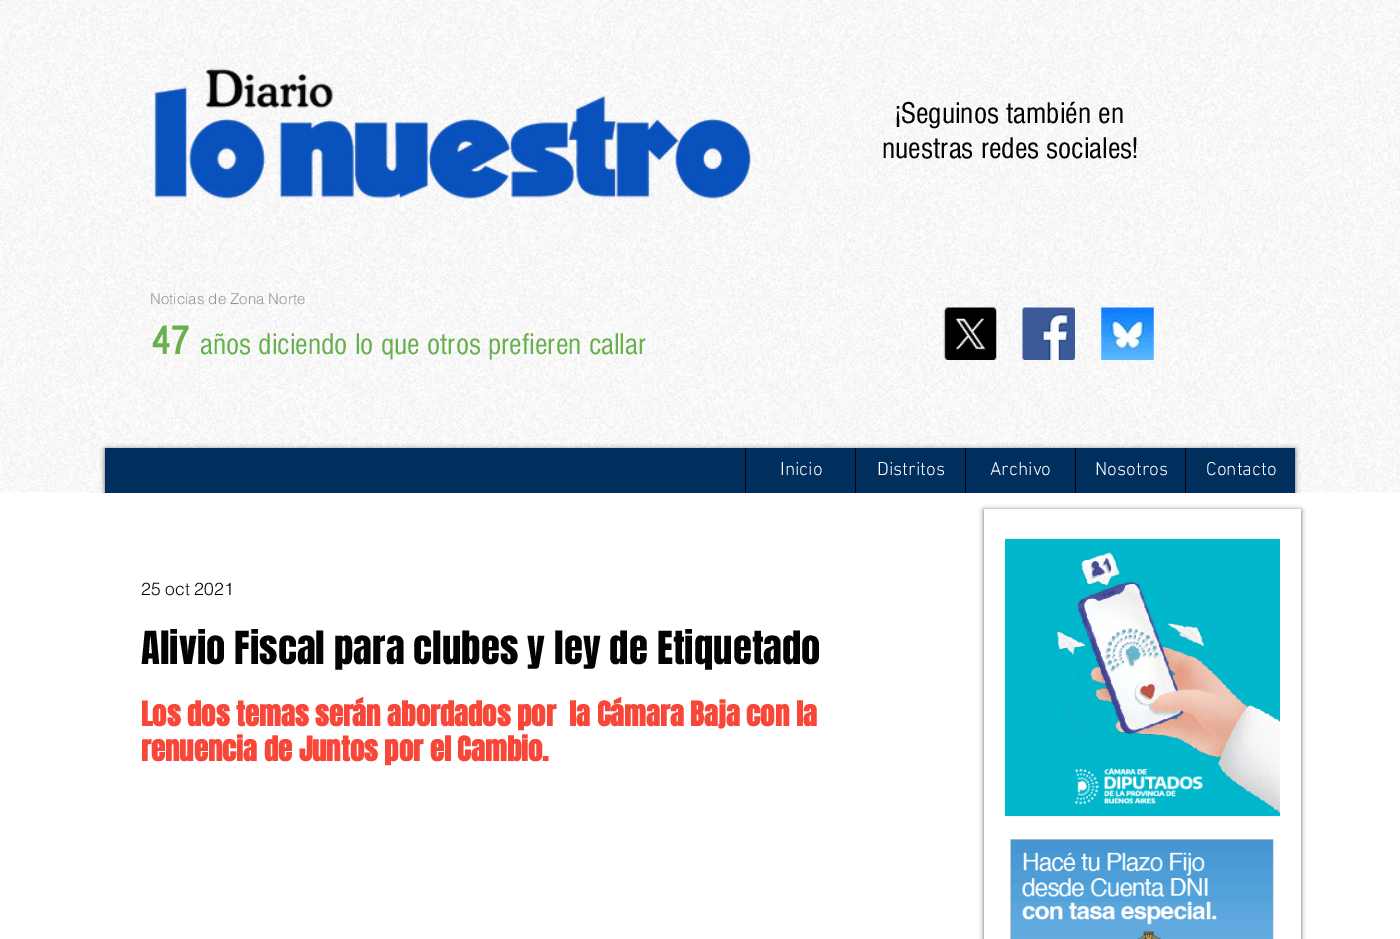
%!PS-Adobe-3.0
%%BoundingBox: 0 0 1400 939
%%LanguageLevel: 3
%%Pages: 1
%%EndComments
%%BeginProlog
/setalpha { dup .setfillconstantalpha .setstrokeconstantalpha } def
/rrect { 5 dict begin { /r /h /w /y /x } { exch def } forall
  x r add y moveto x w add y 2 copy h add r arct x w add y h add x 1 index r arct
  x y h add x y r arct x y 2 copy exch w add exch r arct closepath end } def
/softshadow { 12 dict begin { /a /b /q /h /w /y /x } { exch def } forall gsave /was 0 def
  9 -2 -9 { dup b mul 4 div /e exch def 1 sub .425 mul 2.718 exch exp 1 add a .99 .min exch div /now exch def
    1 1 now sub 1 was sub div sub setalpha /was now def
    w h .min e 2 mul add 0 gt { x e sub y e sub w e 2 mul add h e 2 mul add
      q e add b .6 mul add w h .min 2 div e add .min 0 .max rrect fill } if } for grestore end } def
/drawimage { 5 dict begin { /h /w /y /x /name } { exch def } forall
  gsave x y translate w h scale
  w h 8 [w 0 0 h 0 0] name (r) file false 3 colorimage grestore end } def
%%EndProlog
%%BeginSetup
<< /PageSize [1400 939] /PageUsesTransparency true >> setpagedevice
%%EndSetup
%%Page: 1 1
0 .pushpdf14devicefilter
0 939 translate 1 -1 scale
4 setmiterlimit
1 setgray
0 0 1400 939 rectfill
(images/1.raw) 0 0 1400 493 drawimage
(images/2.raw) 154 68 597 131 drawimage
(images/3.raw) 943 307 54 53 drawimage
(images/4.raw) 1022 307 53 53 drawimage
(images/5.raw) 1101 307 53 53 drawimage
0 setgray
105 449 1190 45 0 2.5 0.6 softshadow
0 0.18 0.365 setrgbcolor
105 448 1190 45 rectfill
0.012 setgray
745 448 1 45 rectfill
855 448 1 45 rectfill
965 448 1 45 rectfill
1075 448 1 45 rectfill
1185 448 1 45 rectfill
1 setgray
100 493 1200 6 rectfill
gsave
newpath 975 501 moveto 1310 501 lineto 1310 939 lineto 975 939 lineto closepath 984 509 moveto 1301 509 lineto 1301 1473 lineto 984 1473 lineto closepath eoclip newpath
0 setgray
984 510 317 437 0 2.5 0.6 softshadow
grestore
(images/6.raw) 1005 538 275 279 drawimage
(images/7.raw) 1010 839 264 100 drawimage
/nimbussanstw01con-Regular [31.25 0 0 -31.25 0 0] selectfont
0.012 setgray
895 123 moveto (¡Seguinos también en) show
882 158 moveto (nuestras redes sociales!) show
/helvetica-Light [15 0 0 -15 0 0] selectfont
0.592 0.576 0.576 setrgbcolor
150 304 moveto (Noticias de Zona Norte) show
/nimbussanstw01con-Bold [41 0 0 -41 0 0] selectfont
0.408 0.69 0.302 setrgbcolor
151 354 moveto (47) show
/nimbussanstw01con-Regular [31.25 0 0 -31.25 0 0] selectfont
200 354 moveto (años diciendo lo que otros prefieren callar) show
/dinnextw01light-Light [19 0 0 -19 0 0] selectfont
1 setgray
780 475 moveto (Inicio) show
877 475 moveto (Distritos) show
990 475 moveto (Archivo) show
1095 475 moveto (Nosotros) show
1206 475 moveto (Contacto) show
/helvetica-Light [17.5 0 0 -17.5 0 0] selectfont
0.012 setgray
141 595 moveto (25 oct 2021) show
/Anton-Regular [38.75 0 0 -38.75 0 0] selectfont
141 664 moveto (Alivio Fiscal para clubes y ley de Etiquetado) show
/Anton-Bold [28.75 0 0 -28.75 0 0] selectfont
0.973 0.278 0.22 setrgbcolor
141 726 moveto (Los dos temas serán abordados por  la Cámara Baja con la) show
141 761 moveto (renuencia de Juntos por el Cambio.) show
.poppdf14devicefilter showpage
%%EOF
